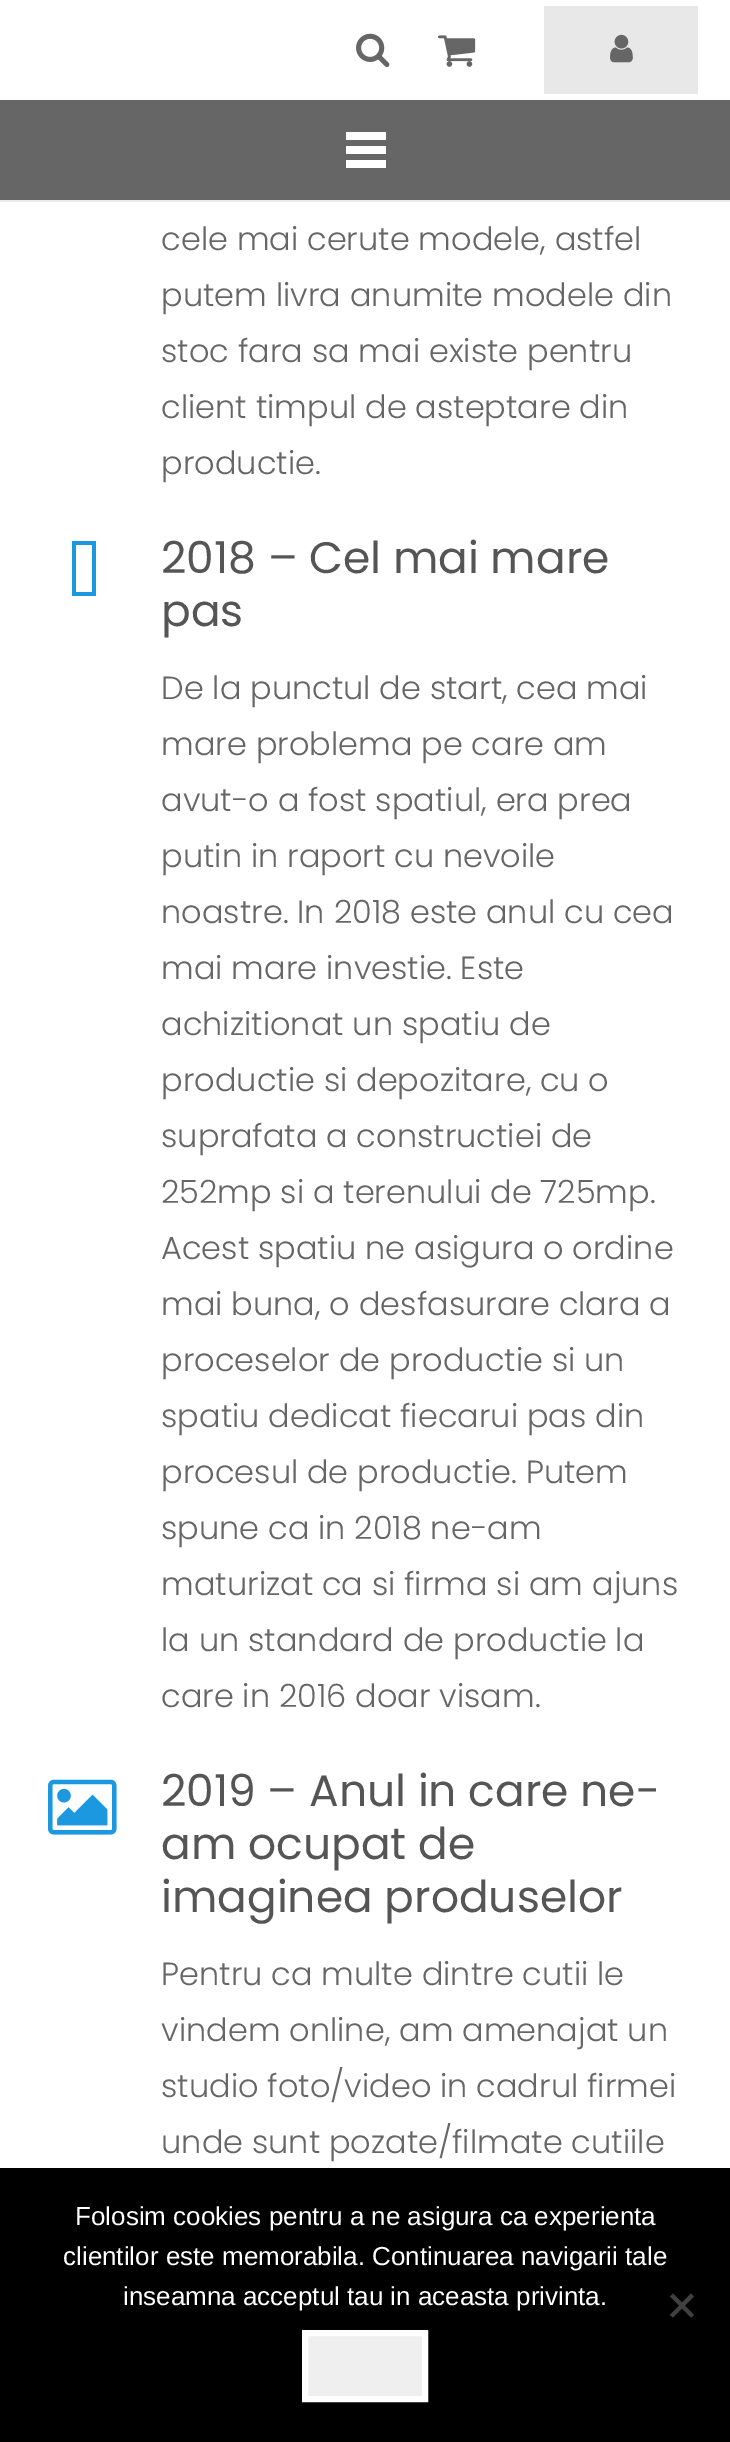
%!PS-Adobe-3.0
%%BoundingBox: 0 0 730 2442
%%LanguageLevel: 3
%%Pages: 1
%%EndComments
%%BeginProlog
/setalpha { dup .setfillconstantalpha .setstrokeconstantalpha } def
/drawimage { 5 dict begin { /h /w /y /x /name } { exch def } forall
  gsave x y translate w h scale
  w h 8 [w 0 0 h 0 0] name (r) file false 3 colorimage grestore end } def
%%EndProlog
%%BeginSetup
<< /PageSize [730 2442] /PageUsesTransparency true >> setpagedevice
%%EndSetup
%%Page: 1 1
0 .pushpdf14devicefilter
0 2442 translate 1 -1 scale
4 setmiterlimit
1 setgray
0 0 730 2442 rectfill
(images/1.raw) 356 33 34 35 drawimage
(images/2.raw) 438 35 38 32 drawimage
0.91 setgray
544 6 154 88 rectfill
(images/3.raw) 610 34 23 29 drawimage
0.08 setalpha
0 setgray
0 200 730 2 rectfill
1 setalpha
0.4 setgray
0 100 730 100 rectfill
1 setgray
346 146 40 8 rectfill
346 132 40 8 rectfill
346 160 40 8 rectfill
0.106 0.596 0.878 setrgbcolor
newpath 76 592 moveto 76 545 lineto 92 545 lineto 92 592 lineto closepath 72 596 moveto 96 596 lineto 96 541 lineto 72 541 lineto closepath fill
(images/4.raw) 48 1779 69 56 drawimage
0 setgray
0 2168 730 274 rectfill
0.251 setgray
newpath 691 2293.5 moveto 694 2296.5 lineto 673 2317.5 lineto 670 2315 lineto closepath fill
newpath 670 2296.5 moveto 673 2293.5 lineto 694 2315 lineto 691 2317.5 lineto closepath fill
0.937 setgray
newpath 305 2333 moveto 425 2333 lineto 425 2399 lineto 305 2399 lineto closepath gsave fill grestore
1 setgray
6 setlinewidth
stroke
/Poppins-Light [32 0 0 -32 0 0] selectfont
0.4 setgray
161 250 moveto (cele mai cerute modele, astfel) show
161 306 moveto (putem livra anumite modele din) show
161 362 moveto (stoc fara sa mai existe pentru) show
161 418 moveto (client timpul de asteptare din) show
161 474 moveto (productie.) show
/Poppins-Regular [44 0 0 -44 0 0] selectfont
0.333 setgray
161 573 moveto (2018 – Cel mai mare) show
161 626 moveto (pas) show
/Poppins-Light [32 0 0 -32 0 0] selectfont
0.4 setgray
161 699 moveto (De la punctul de start, cea mai) show
161 755 moveto (mare problema pe care am) show
161 811 moveto (avut-o a fost spatiul, era prea) show
161 867 moveto (putin in raport cu nevoile) show
161 923 moveto (noastre. In 2018 este anul cu cea) show
161 979 moveto (mai mare investie. Este) show
161 1035 moveto (achizitionat un spatiu de) show
161 1091 moveto (productie si depozitare, cu o) show
161 1147 moveto (suprafata a constructiei de) show
161 1203 moveto (252mp si a terenului de 725mp.) show
161 1259 moveto (Acest spatiu ne asigura o ordine) show
161 1315 moveto (mai buna, o desfasurare clara a) show
161 1371 moveto (proceselor de productie si un) show
161 1427 moveto (spatiu dedicat fiecarui pas din) show
161 1483 moveto (procesul de productie. Putem) show
161 1539 moveto (spune ca in 2018 ne-am) show
161 1595 moveto (maturizat ca si firma si am ajuns) show
161 1651 moveto (la un standard de productie la) show
161 1707 moveto (care in 2016 doar visam.) show
/Poppins-Regular [44 0 0 -44 0 0] selectfont
0.333 setgray
161 1806 moveto (2019 – Anul in care ne-) show
161 1859 moveto (am ocupat de) show
161 1912 moveto (imaginea produselor) show
/Poppins-Light [32 0 0 -32 0 0] selectfont
0.4 setgray
161 1985 moveto (Pentru ca multe dintre cutii le) show
161 2041 moveto (vindem online, am amenajat un) show
161 2097 moveto (studio foto/video in cadrul firmei) show
161 2153 moveto (unde sunt pozate/filmate cutiile) show
/LiberationSans-Regular [26 0 0 -26 0 0] selectfont
1 setgray
75 2225 moveto (Folosim cookies pentru a ne asigura ca experienta) show
63 2265 moveto (clientilor este memorabila. Continuarea navigarii tale) show
123 2305 moveto (inseamna acceptul tau in aceasta privinta.) show
.poppdf14devicefilter showpage
%%EOF
